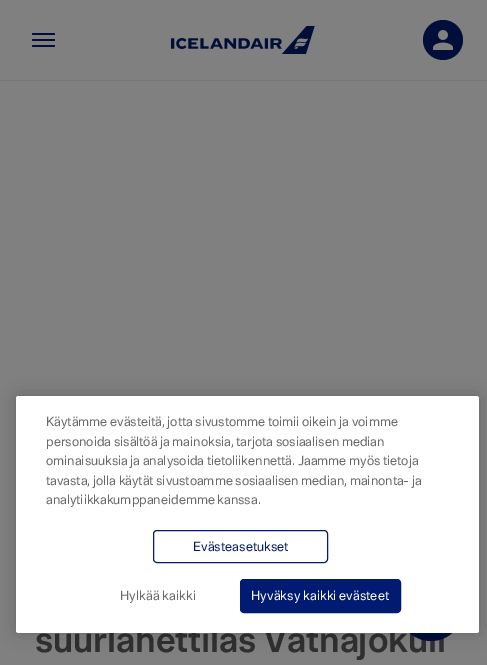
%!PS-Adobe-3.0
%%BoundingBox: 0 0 487 665
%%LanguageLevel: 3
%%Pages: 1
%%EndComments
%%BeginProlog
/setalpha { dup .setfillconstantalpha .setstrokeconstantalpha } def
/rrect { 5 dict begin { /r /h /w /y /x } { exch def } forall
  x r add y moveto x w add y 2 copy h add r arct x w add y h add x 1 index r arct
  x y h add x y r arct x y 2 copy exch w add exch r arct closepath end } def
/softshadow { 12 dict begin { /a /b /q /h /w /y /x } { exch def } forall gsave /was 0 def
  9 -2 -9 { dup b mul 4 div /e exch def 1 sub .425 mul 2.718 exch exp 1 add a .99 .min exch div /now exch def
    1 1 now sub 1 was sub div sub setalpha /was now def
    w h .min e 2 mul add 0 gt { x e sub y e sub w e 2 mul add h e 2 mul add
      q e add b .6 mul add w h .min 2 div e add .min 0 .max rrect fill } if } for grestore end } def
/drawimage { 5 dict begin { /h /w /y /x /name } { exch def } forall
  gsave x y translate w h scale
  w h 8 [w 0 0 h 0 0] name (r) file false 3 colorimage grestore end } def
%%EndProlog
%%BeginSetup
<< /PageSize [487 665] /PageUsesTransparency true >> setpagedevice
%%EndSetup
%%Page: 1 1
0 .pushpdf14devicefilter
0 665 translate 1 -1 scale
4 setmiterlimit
0.502 setgray
0 0 487 665 rectfill
0.463 0.467 0.471 setrgbcolor
0 80 487 1 rectfill
0 0.051 0.22 setrgbcolor
32 33 23 2 1 rrect fill
32 39 23 2 1 rrect fill
32 45 23 2 1 rrect fill
(images/1.raw) 171 26 144 28 drawimage
0 0.055 0.224 setrgbcolor
newpath 443 40 20 0 360 arc closepath fill
(images/2.raw) 433 30 20 20 drawimage
/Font-SemiBold [36 0 0 -36 0 0] selectfont
0.184 setgray
35 652 moveto (suurlähettiläs Vatnajökull) show
0 0.055 0.224 setrgbcolor
newpath 431 609 32 0 360 arc closepath fill
0 setgray
16 396 463 237 2.5 9 0.2 softshadow
1 setgray
16 396 463 237 2.5 rrect fill
0 0.106 0.443 setrgbcolor
153.5 530.5 174 32 3.5 rrect stroke
/Font-Regular [13 0 0 -13 0 0] selectfont
193 551 moveto 0.1 0 (Evästeasetukset) ashow
240.5 579.5 160 33 3.5 rrect gsave fill grestore
stroke
1 setgray
251 600 moveto 0.1 0 (Hyväksy kaikki evästeet) ashow
0.412 setgray
120 600 moveto 0.1 0 (Hylkää kaikki) ashow
46 504 moveto (analytiikkakumppaneidemme kanssa.) show
46 485 moveto (tavasta, jolla käytät sivustoamme sosiaalisen median, mainonta- ja) show
46 465 moveto (ominaisuuksia ja analysoida tietoliikennettä. Jaamme myös tietoja) show
46 446 moveto (personoida sisältöä ja mainoksia, tarjota sosiaalisen median) show
46 426 moveto (Käytämme evästeitä, jotta sivustomme toimii oikein ja voimme) show
.poppdf14devicefilter showpage
%%EOF
